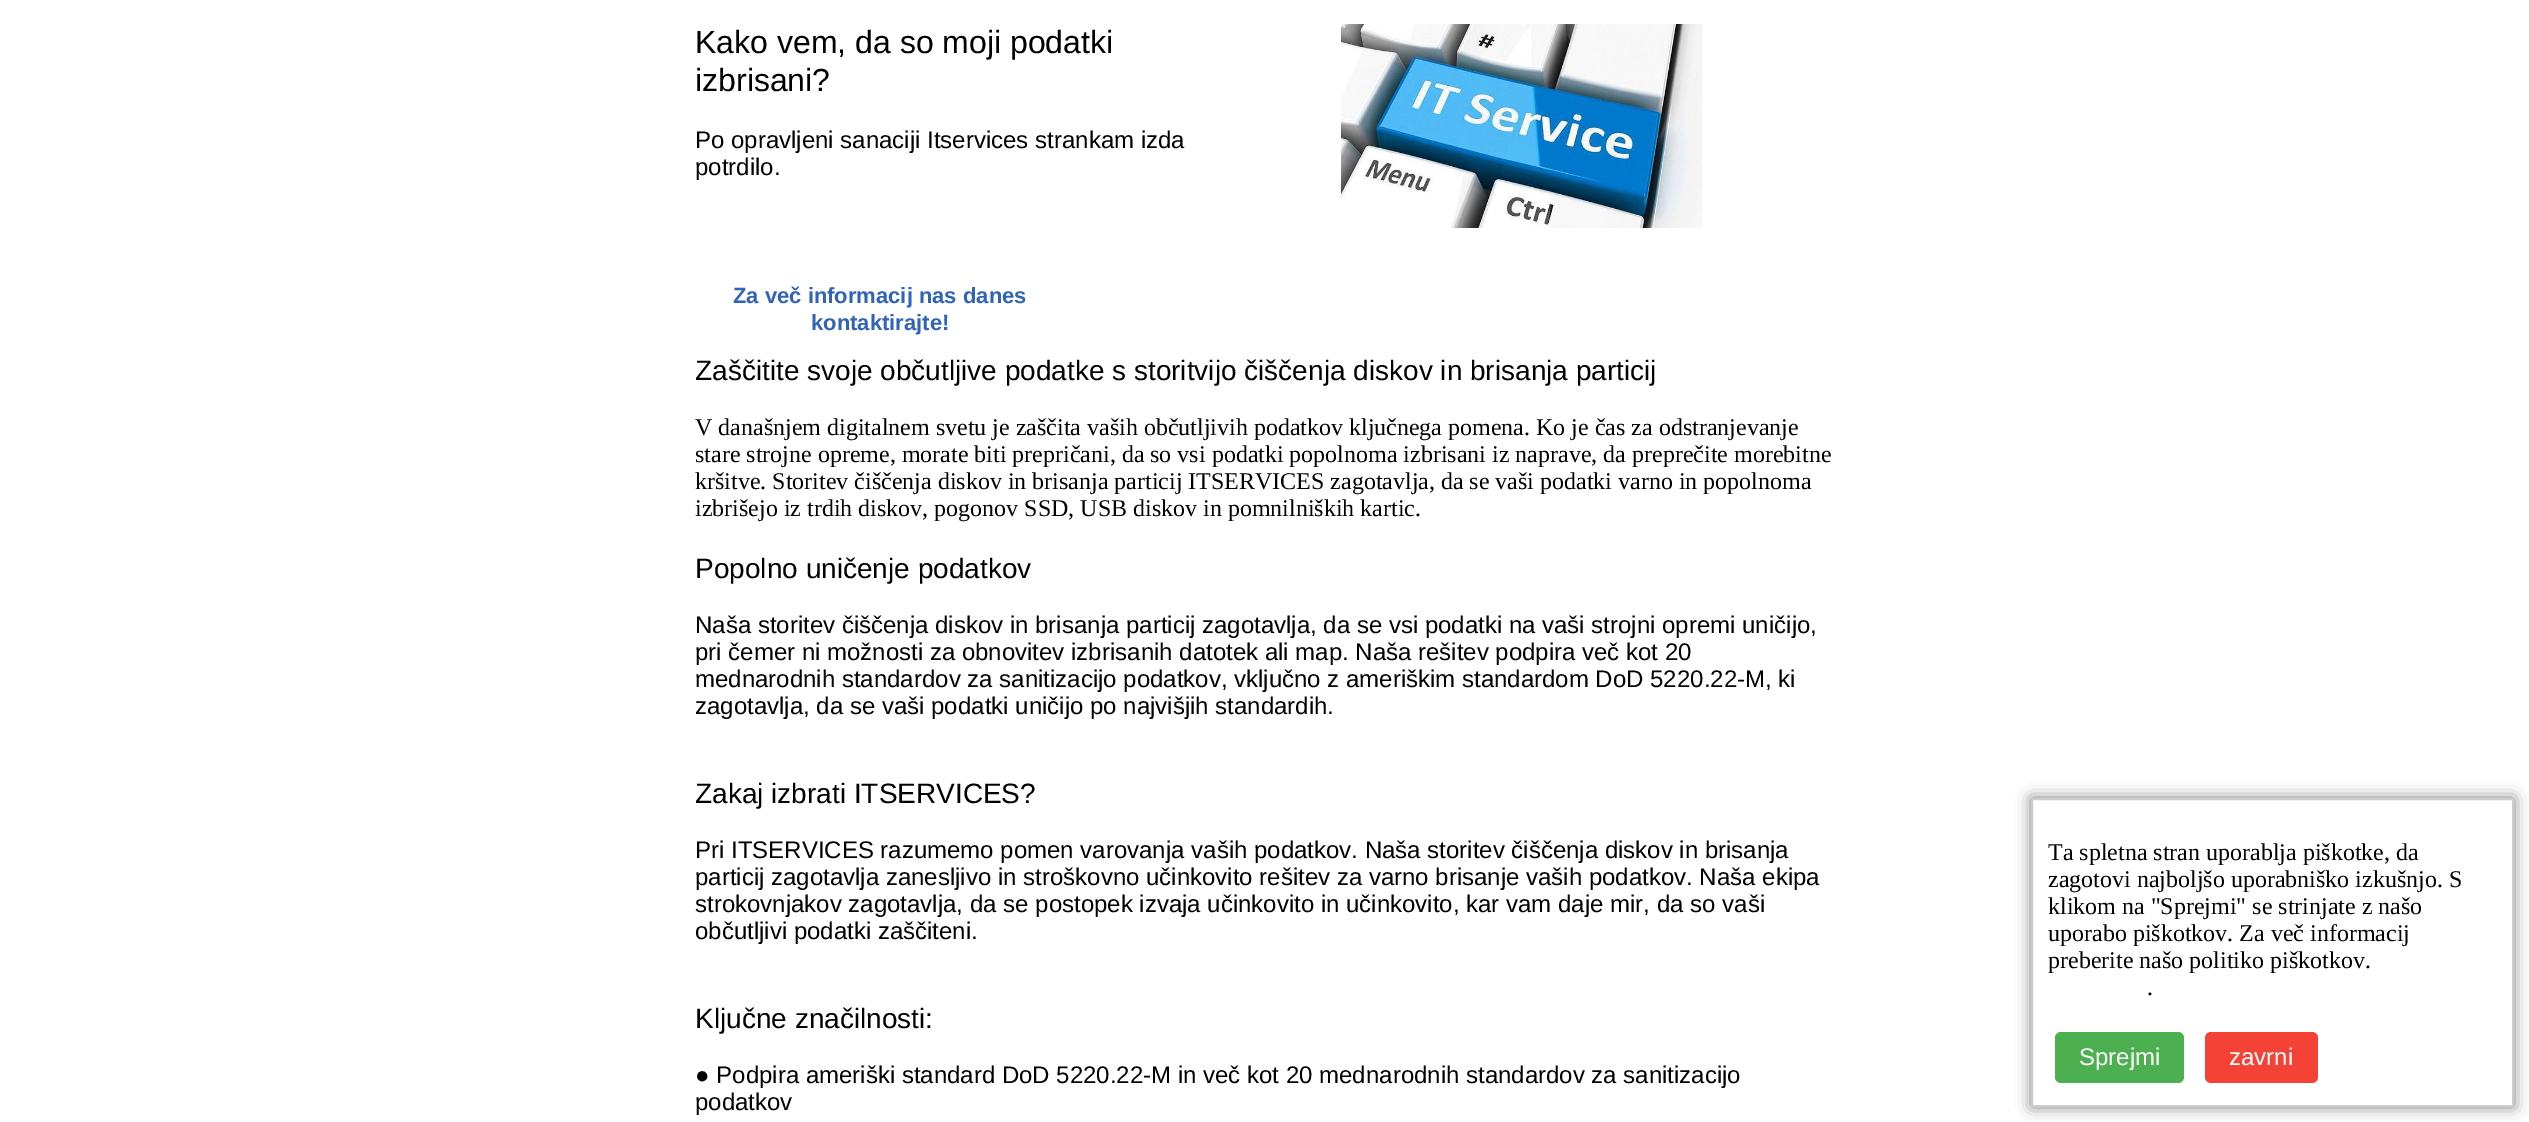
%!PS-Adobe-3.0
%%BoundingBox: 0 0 2529 1122
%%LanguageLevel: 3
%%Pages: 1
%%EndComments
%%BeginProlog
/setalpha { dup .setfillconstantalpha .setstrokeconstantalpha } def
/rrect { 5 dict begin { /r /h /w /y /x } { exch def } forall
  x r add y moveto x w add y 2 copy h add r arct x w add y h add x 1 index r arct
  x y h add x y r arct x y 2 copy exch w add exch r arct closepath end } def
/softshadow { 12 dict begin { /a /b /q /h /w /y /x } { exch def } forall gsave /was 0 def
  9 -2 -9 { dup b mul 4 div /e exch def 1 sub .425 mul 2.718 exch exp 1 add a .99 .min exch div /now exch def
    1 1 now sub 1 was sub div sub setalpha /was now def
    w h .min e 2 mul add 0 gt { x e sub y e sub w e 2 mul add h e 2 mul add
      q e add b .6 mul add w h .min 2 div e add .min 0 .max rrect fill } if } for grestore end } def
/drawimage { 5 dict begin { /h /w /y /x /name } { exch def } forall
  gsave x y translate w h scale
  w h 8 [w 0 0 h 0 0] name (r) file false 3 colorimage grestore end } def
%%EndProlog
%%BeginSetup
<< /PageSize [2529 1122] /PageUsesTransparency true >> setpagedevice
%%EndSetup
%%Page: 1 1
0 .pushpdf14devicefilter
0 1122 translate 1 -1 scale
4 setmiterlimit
1 setgray
0 0 2529 1122 rectfill
(images/1.raw) 1341 24 362 204 drawimage
gsave
newpath 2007 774 moveto 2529 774 lineto 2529 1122 lineto 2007 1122 lineto closepath 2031 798 moveto 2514 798 lineto 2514 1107 lineto 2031 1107 lineto closepath eoclip newpath
0 setgray
2031 798 483 309 0 7.5 0.5 softshadow
grestore
0.8 setgray
2 setlinewidth
2032 799 481 307 rectstroke
0.298 0.686 0.314 setrgbcolor
2055 1032 129 51 6 rrect fill
0.957 0.263 0.212 setrgbcolor
2205 1032 113 51 6 rrect fill
/LiberationSans-Regular [32 0 0 -32 0 0] selectfont
0 setgray
695 53 moveto (Kako vem, da so moji podatki) show
695 91 moveto (izbrisani?) show
/LiberationSans-Regular [24 0 0 -24 0 0] selectfont
695 148 moveto (Po opravljeni sanaciji Itservices strankam izda) show
695 175 moveto (potrdilo.) show
/LiberationSans-Bold [22 0 0 -22 0 0] selectfont
0.192 0.392 0.718 setrgbcolor
733 303 moveto (Za več informacij nas danes) show
811 330 moveto (kontaktirajte!) show
/LiberationSans-Regular [28 0 0 -28 0 0] selectfont
0 setgray
695 380 moveto (Zaščitite svoje občutljive podatke s storitvijo čiščenja diskov in brisanja particij) show
/LiberationSerif-Regular [24 0 0 -24 0 0] selectfont
695 435 moveto (V današnjem digitalnem svetu je zaščita vaših občutljivih podatkov ključnega pomena. Ko je čas za odstranjevanje) show
695 462 moveto (stare strojne opreme, morate biti prepričani, da so vsi podatki popolnoma izbrisani iz naprave, da preprečite morebitne) show
695 489 moveto (kršitve. Storitev čiščenja diskov in brisanja particij ITSERVICES zagotavlja, da se vaši podatki varno in popolnoma) show
695 516 moveto (izbrišejo iz trdih diskov, pogonov SSD, USB diskov in pomnilniških kartic.) show
/LiberationSans-Regular [28 0 0 -28 0 0] selectfont
695 578 moveto (Popolno uničenje podatkov) show
/LiberationSans-Regular [24 0 0 -24 0 0] selectfont
695 633 moveto (Naša storitev čiščenja diskov in brisanja particij zagotavlja, da se vsi podatki na vaši strojni opremi uničijo,) show
695 660 moveto (pri čemer ni možnosti za obnovitev izbrisanih datotek ali map. Naša rešitev podpira več kot 20) show
695 687 moveto (mednarodnih standardov za sanitizacijo podatkov, vključno z ameriškim standardom DoD 5220.22-M, ki) show
695 714 moveto (zagotavlja, da se vaši podatki uničijo po najvišjih standardih.) show
/LiberationSans-Regular [28 0 0 -28 0 0] selectfont
695 803 moveto (Zakaj izbrati ITSERVICES?) show
/LiberationSans-Regular [24 0 0 -24 0 0] selectfont
695 858 moveto (Pri ITSERVICES razumemo pomen varovanja vaših podatkov. Naša storitev čiščenja diskov in brisanja) show
695 885 moveto (particij zagotavlja zanesljivo in stroškovno učinkovito rešitev za varno brisanje vaših podatkov. Naša ekipa) show
695 912 moveto (strokovnjakov zagotavlja, da se postopek izvaja učinkovito in učinkovito, kar vam daje mir, da so vaši) show
695 939 moveto (občutljivi podatki zaščiteni.) show
/LiberationSans-Regular [28 0 0 -28 0 0] selectfont
695 1028 moveto (Ključne značilnosti:) show
/LiberationSans-Regular [24 0 0 -24 0 0] selectfont
695 1083 moveto (● Podpira ameriški standard DoD 5220.22-M in več kot 20 mednarodnih standardov za sanitizacijo) show
695 1110 moveto (podatkov) show
/LiberationSerif-Regular [24 0 0 -24 0 0] selectfont
2048 860 moveto (Ta spletna stran uporablja piškotke, da) show
2048 887 moveto (zagotovi najboljšo uporabniško izkušnjo. S) show
2048 914 moveto (klikom na "Sprejmi" se strinjate z našo) show
2048 941 moveto (uporabo piškotkov. Za več informacij) show
2048 968 moveto (preberite našo politiko piškotkov.) show
2147 995 moveto (.) show
/LiberationSans-Regular [24 0 0 -24 0 0] selectfont
1 setgray
2079 1065 moveto (Sprejmi) show
2229 1065 moveto (zavrni) show
.poppdf14devicefilter showpage
%%EOF
